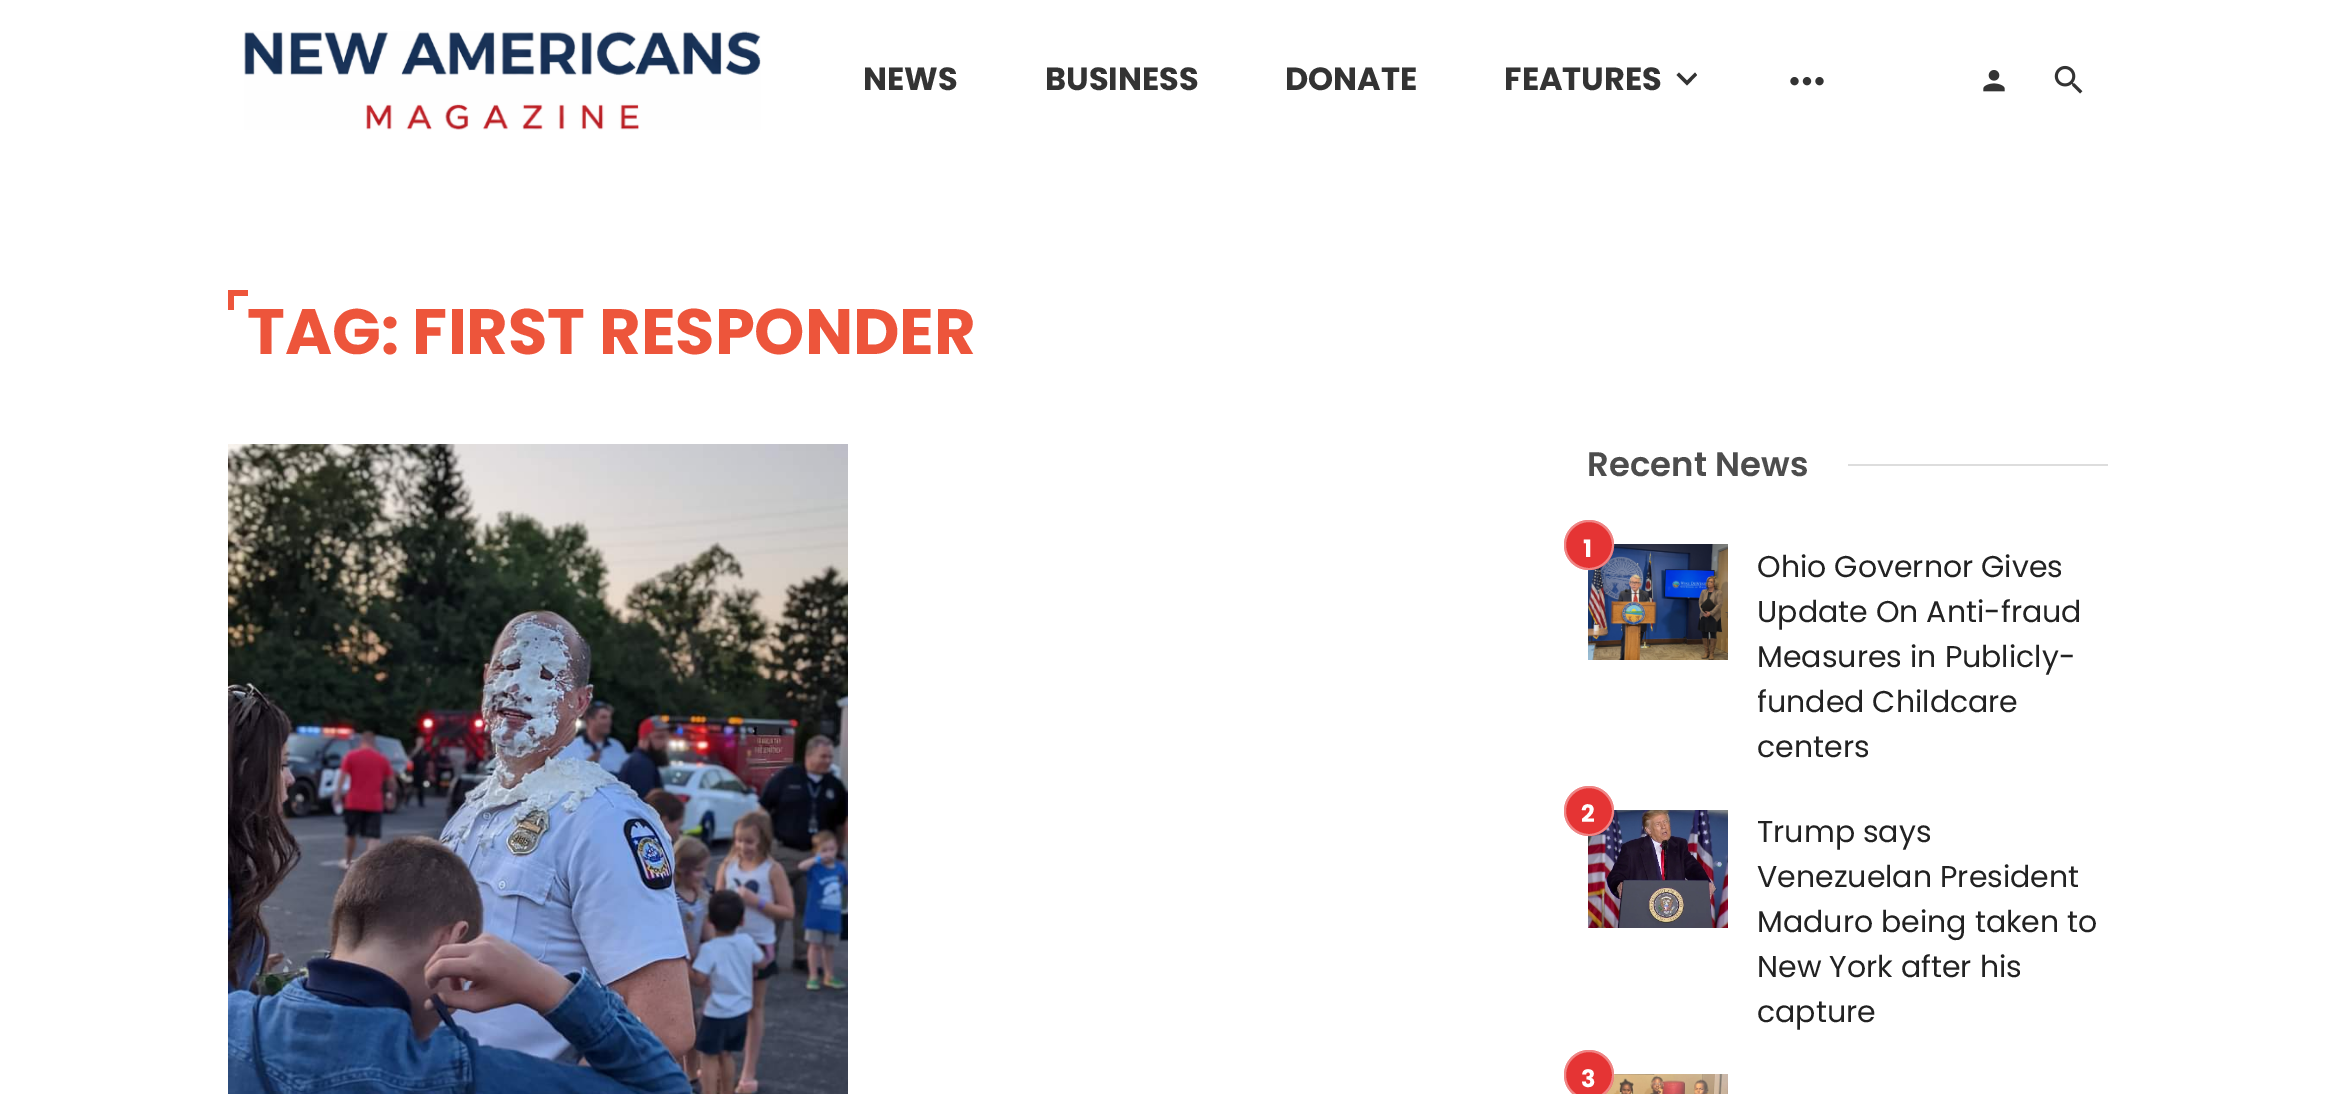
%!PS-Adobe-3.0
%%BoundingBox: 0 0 2333 1094
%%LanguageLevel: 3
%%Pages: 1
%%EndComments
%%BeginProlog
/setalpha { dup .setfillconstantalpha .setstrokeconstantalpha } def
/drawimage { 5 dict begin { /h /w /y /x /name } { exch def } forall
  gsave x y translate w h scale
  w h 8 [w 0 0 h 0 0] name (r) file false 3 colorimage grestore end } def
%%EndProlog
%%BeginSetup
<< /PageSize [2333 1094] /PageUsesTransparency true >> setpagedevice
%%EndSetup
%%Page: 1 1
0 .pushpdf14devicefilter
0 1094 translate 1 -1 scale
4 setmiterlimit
1 setgray
0 0 2333 1094 rectfill
(images/1.raw) 244 31 517 99 drawimage
0.2 setgray
newpath 1695 72.5 moveto 1697 75 lineto 1687 85.5 lineto 1676.5 75 lineto 1679 72.5 lineto 1687 80.5 lineto closepath fill
(images/2.raw) 1790 77 34 9 drawimage
(images/3.raw) 1983 70 22 22 drawimage
(images/4.raw) 2054 65 29 29 drawimage
0.929 0.333 0.231 setrgbcolor
228 290 20 6 rectfill
228 290 6 20 rectfill
(images/5.raw) 228 444 620 650 drawimage
0.867 setgray
1848 464 260 2 rectfill
(images/6.raw) 1588 544 140 116 drawimage
0.898 0.204 0.204 setrgbcolor
newpath 1589 545 25 0 360 arc closepath fill
0.4 setalpha
1 setgray
2 setlinewidth
newpath 1589 545 24 0 360 arc closepath stroke
1 setalpha
(images/7.raw) 1588 810 140 118 drawimage
0.898 0.204 0.204 setrgbcolor
newpath 1589 811 25 0 360 arc closepath fill
0.4 setalpha
1 setgray
newpath 1589 811 24 0 360 arc closepath stroke
1 setalpha
(images/8.raw) 1605 1074 123 20 drawimage
0.898 0.204 0.204 setrgbcolor
newpath 1589 1075 25 0 360 arc closepath fill
0.4 setalpha
1 setgray
newpath 1589 1075 24 0 360 arc closepath stroke
/Poppins-Bold [32 0 0 -32 0 0] selectfont
1 setalpha
0.2 setgray
863 90 moveto (NEWS) show
1045 90 moveto (BUSINESS) show
1285 90 moveto (DONATE) show
1504 90 moveto (FEATURES) show
/Poppins-Bold [64 0 0 -64 0 0] selectfont
0.929 0.333 0.231 setrgbcolor
247 354 moveto (TAG: FIRST RESPONDER) show
/Poppins-SemiBold [34 0 0 -34 0 0] selectfont
0.302 setgray
1587 476 moveto (Recent News) show
/Poppins-Bold [24 0 0 -24 0 0] selectfont
1 setgray
1583 557 moveto (1) show
/Poppins-Regular [30 0 0 -30 0 0] selectfont
0.133 setgray
1757 577 moveto (Ohio Governor Gives) show
1757 622 moveto (Update On Anti-fraud) show
1757 667 moveto (Measures in Publicly-) show
gsave
1758 544 350 226 rectclip
1757 712 moveto (funded Childcare) show
grestore
1757 757 moveto (centers) show
/Poppins-Bold [24 0 0 -24 0 0] selectfont
1 setgray
1581 822 moveto (2) show
/Poppins-Regular [30 0 0 -30 0 0] selectfont
0.133 setgray
1757 842 moveto (Trump says) show
1757 887 moveto (Venezuelan President) show
1757 932 moveto (Maduro being taken to) show
1757 977 moveto (New York after his) show
1757 1022 moveto (capture) show
/Poppins-Bold [24 0 0 -24 0 0] selectfont
1 setgray
1581 1087 moveto (3) show
.poppdf14devicefilter showpage
%%EOF
